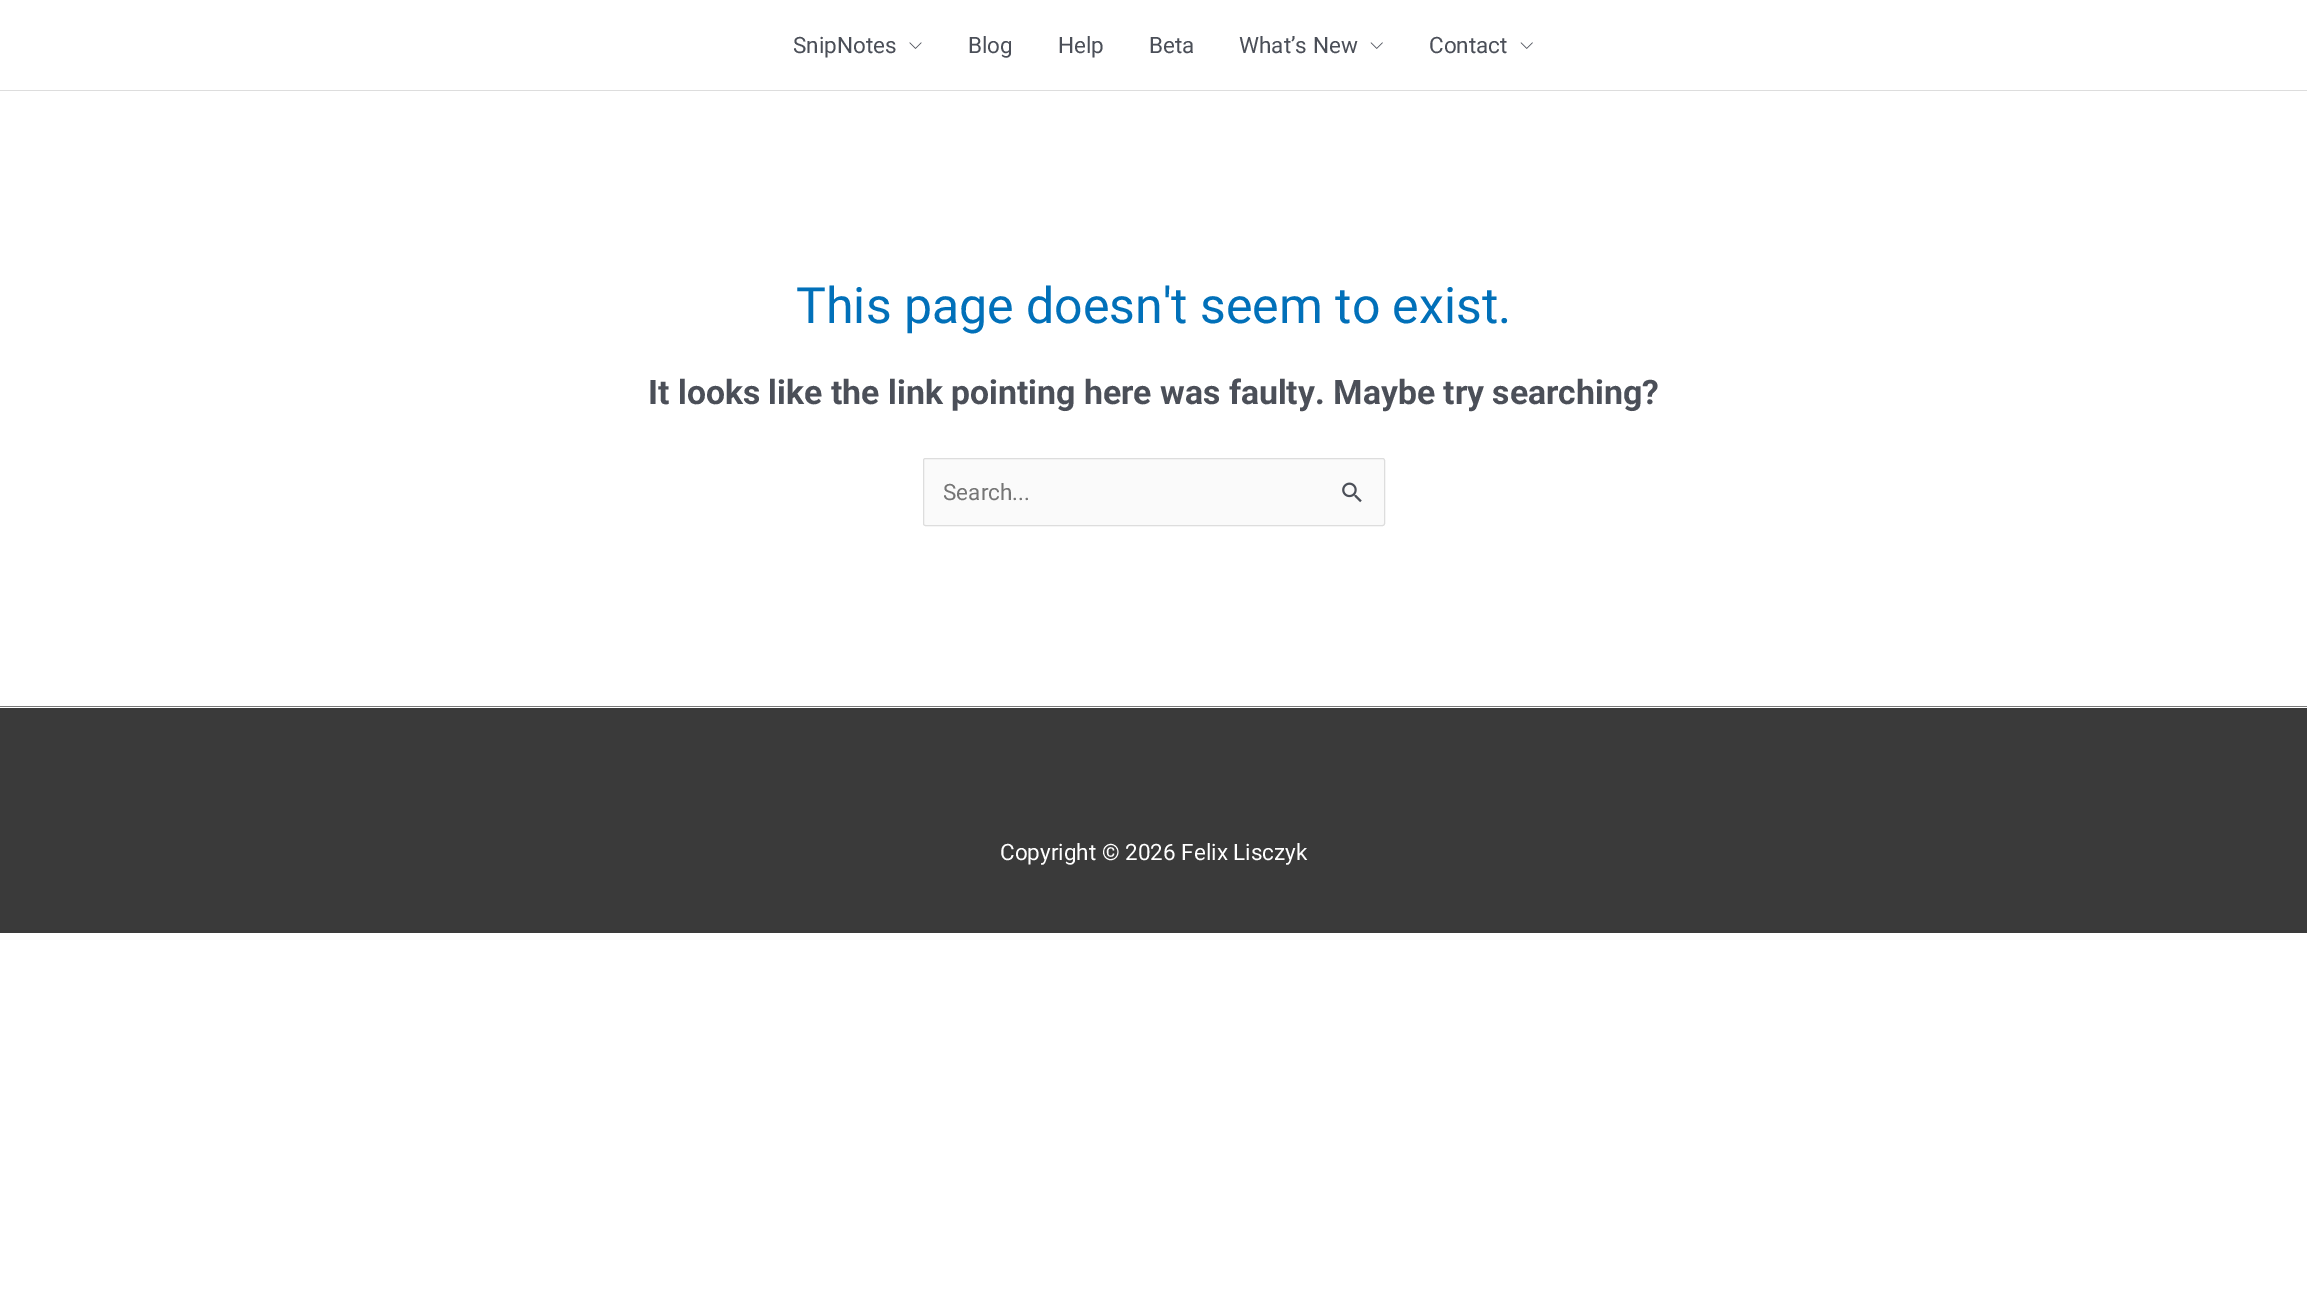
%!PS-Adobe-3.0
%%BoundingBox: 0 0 2307 1301
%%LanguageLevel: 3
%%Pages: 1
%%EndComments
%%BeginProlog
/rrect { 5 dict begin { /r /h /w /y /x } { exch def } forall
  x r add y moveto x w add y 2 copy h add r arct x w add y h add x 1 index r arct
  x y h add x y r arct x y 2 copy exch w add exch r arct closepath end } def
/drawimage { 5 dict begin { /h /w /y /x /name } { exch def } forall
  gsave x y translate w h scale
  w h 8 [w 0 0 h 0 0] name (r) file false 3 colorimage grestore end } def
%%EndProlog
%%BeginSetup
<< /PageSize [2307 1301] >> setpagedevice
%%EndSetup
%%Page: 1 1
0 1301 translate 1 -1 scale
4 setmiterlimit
1 setgray
0 0 2307 1301 rectfill
0.867 setgray
0 90 2307 1 rectfill
(images/1.raw) 909 42 13 7 drawimage
(images/2.raw) 1370 42 13 7 drawimage
(images/2.raw) 1520 42 13 7 drawimage
0.98 setgray
923.5 458.5 461 67 2 rrect gsave fill grestore
0.867 setgray
stroke
(images/3.raw) 1342 482 20 21 drawimage
0.478 setgray
0 706 2307 1 rectfill
0.227 setgray
0 708 2307 225 rectfill
/Roboto-Regular [22.5 0 0 -22.5 0 0] selectfont
0.294 0.31 0.345 setrgbcolor
793 53 moveto (SnipNotes) show
968 53 moveto (Blog) show
1058 53 moveto (Help) show
1149 53 moveto (Beta) show
1239 53 moveto (What’s New) show
1429 53 moveto (Contact) show
/Roboto-Regular [50 0 0 -50 0 0] selectfont
0.004 0.439 0.725 setrgbcolor
796 323 moveto (This page doesn't seem to exist.) show
/Roboto-Bold [33.75 0 0 -33.75 0 0] selectfont
0.294 0.31 0.345 setrgbcolor
648 404 moveto (It looks like the link pointing here was faulty. Maybe try searching?) show
/Roboto-Regular [22.5 0 0 -22.5 0 0] selectfont
0.459 setgray
943 500 moveto (Search...) show
1 setgray
1000 860 moveto (Copyright © 2026 Felix Lisczyk) show
showpage
%%EOF
